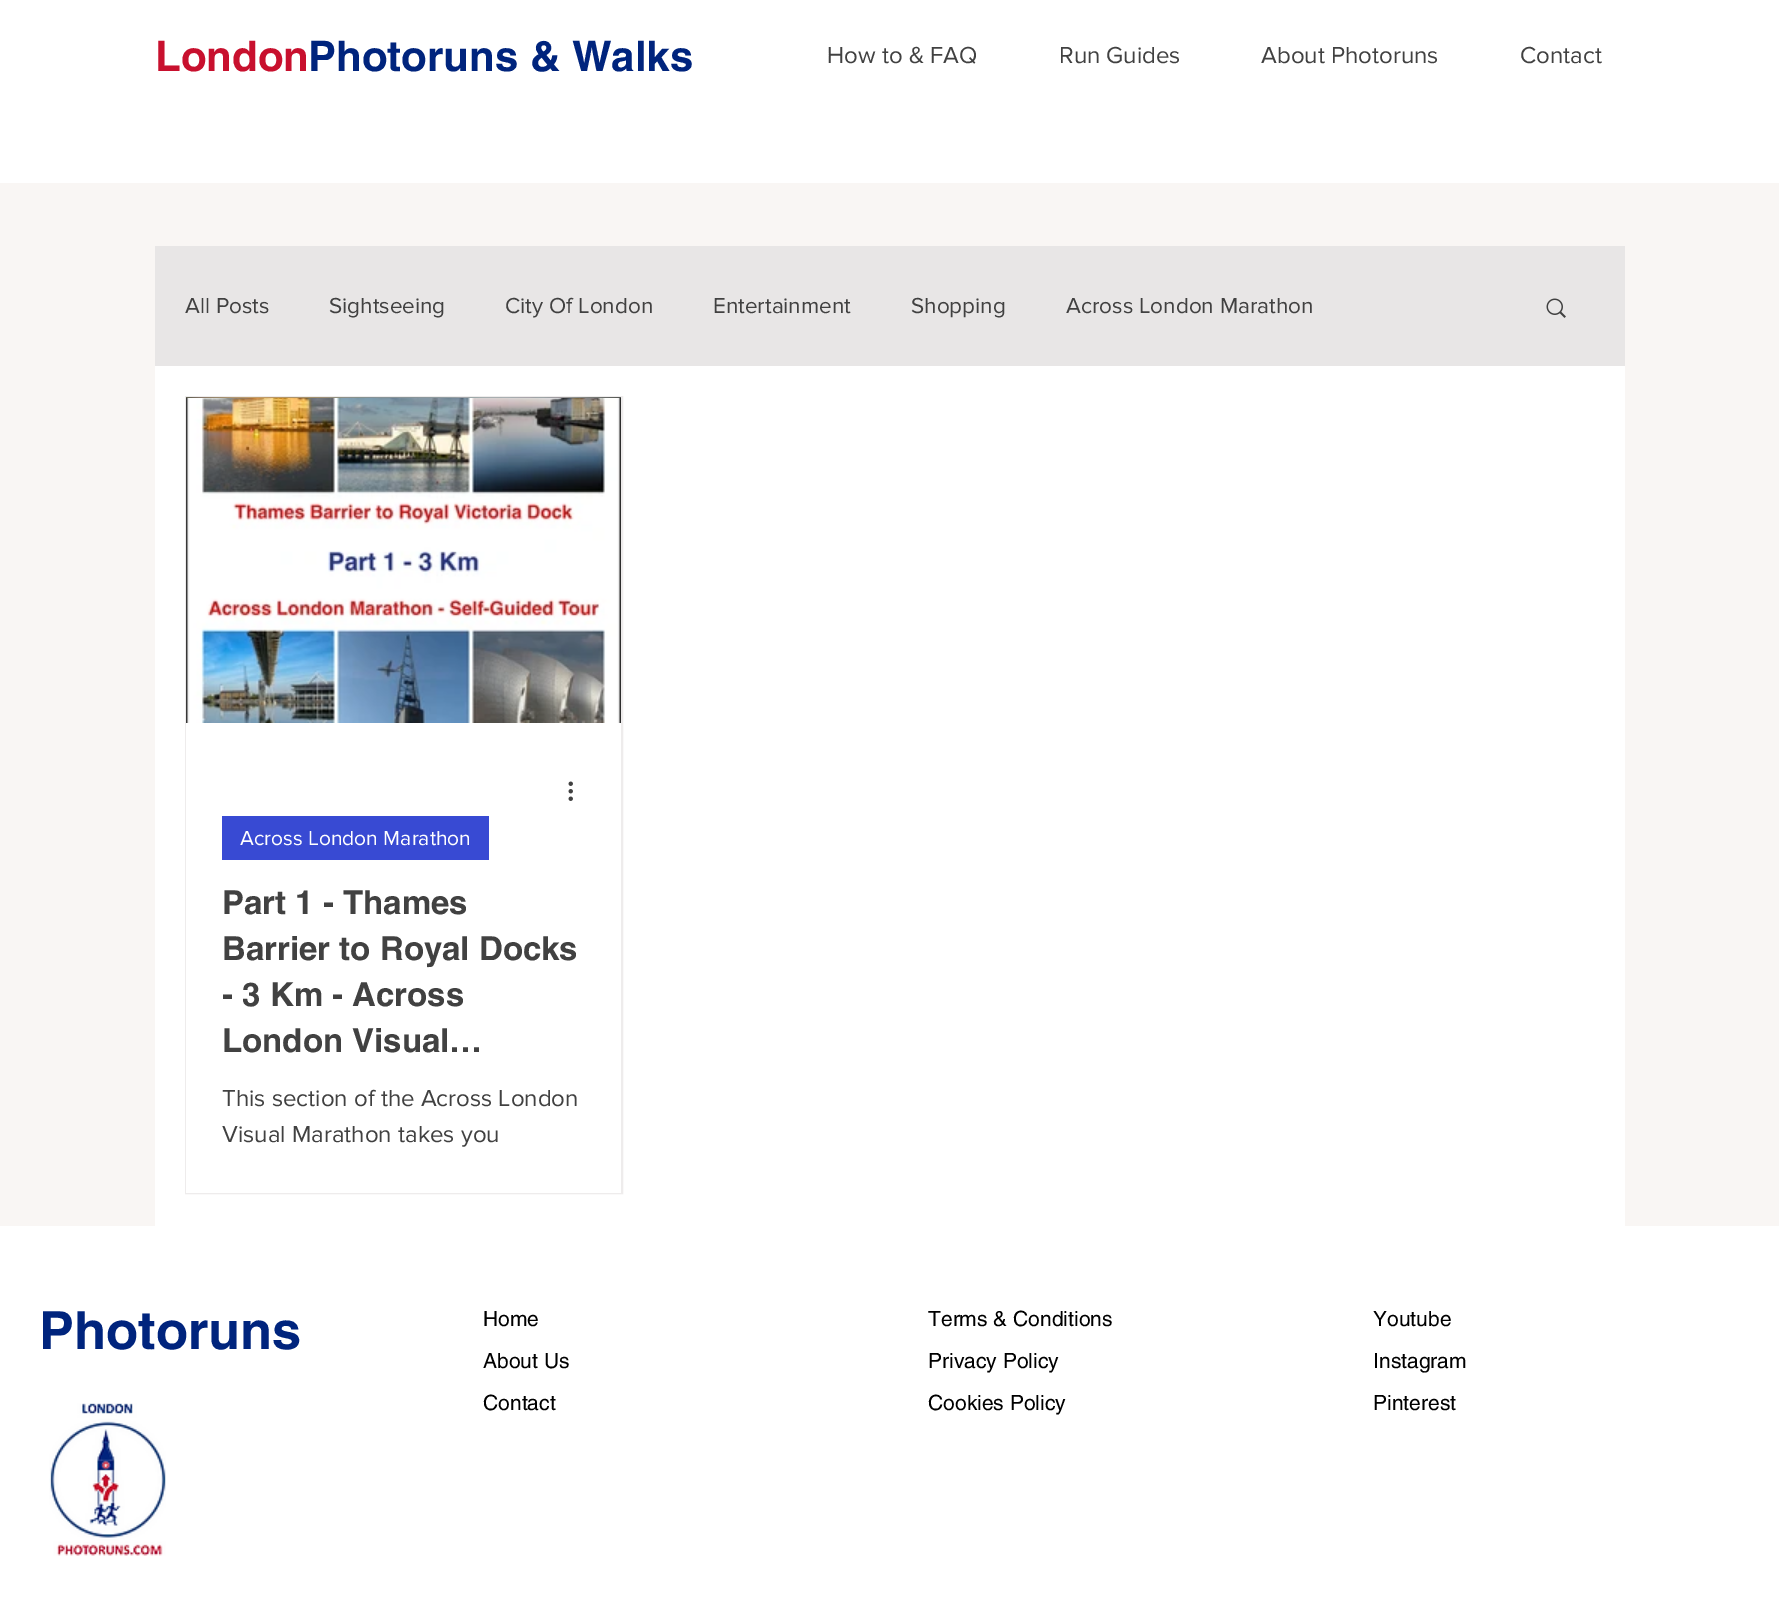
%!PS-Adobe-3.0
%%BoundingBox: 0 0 1779 1615
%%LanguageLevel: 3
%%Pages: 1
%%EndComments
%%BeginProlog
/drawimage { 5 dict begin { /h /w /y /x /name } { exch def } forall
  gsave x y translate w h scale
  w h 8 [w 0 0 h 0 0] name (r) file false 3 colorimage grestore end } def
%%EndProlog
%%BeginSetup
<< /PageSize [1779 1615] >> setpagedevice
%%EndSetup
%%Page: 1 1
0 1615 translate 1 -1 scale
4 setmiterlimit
0.976 0.965 0.957 setrgbcolor
0 0 1779 1615 rectfill
1 setgray
0 0 1779 183 rectfill
155 366 1470 860 rectfill
0.91 0.902 0.902 setrgbcolor
155 246 1470 120 rectfill
(images/1.raw) 1546 298 20 20 drawimage
0.933 0.925 0.925 setrgbcolor
2 setlinewidth
186 397 436 796 rectstroke
(images/2.raw) 186 397 435 1 drawimage
(images/3.raw) 186 398 435 325 drawimage
1 setgray
186 723 435 470 rectfill
(images/4.raw) 568 781 5 20 drawimage
0.22 0.29 0.827 setrgbcolor
222 816 267 44 rectfill
1 setgray
0 1226 1779 389 rectfill
(images/5.raw) 49 1403 117 153 drawimage
/helvetica-Bold [42 0 0 -42 0 0] selectfont
0.784 0.063 0.18 setrgbcolor
155 71 moveto (London) show
0 0.141 0.49 setrgbcolor
308 71 moveto (Photoruns & Walks) show
/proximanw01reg-Regular [24 0 0 -24 0 0] selectfont
0.255 setgray
827 63 moveto (How to & FAQ) show
1059 63 moveto (Run Guides) show
1261 63 moveto (About Photoruns) show
1520 63 moveto (Contact) show
/proximanw01reg-Regular [22.5 0 0 -22.5 0 0] selectfont
185 313 moveto (All Posts) show
329 313 moveto (Sightseeing) show
505 313 moveto (City Of London) show
713 313 moveto (Entertainment) show
911 313 moveto (Shopping) show
1066 313 moveto (Across London Marathon) show
/proximanw01reg-Regular [21 0 0 -21 0 0] selectfont
1 setgray
240 845 moveto (Across London Marathon) show
/helvetica-Bold [33 0 0 -33 0 0] selectfont
0.255 setgray
222 914 moveto (Part 1 - Thames) show
222 960 moveto (Barrier to Royal Docks) show
222 1006 moveto (- 3 Km - Across) show
222 1052 moveto (London Visual…) show
/proximanw01reg-Regular [24 0 0 -24 0 0] selectfont
222 1106 moveto (This section of the Across London) show
222 1142 moveto (Visual Marathon takes you) show
/helvetica-Bold [52.5 0 0 -52.5 0 0] selectfont
0 0.141 0.49 setrgbcolor
39 1349 moveto (Photoruns) show
/helvetica-Regular [21 0 0 -21 0 0] selectfont
0 setgray
483 1326 moveto (Home) show
483 1368 moveto (About Us) show
483 1410 moveto (Contact) show
928 1326 moveto (Terms & Conditions) show
928 1368 moveto (Privacy Policy) show
928 1410 moveto (Cookies Policy) show
1373 1326 moveto (Youtube) show
1373 1368 moveto (Instagram) show
1373 1410 moveto (Pinterest) show
showpage
%%EOF
